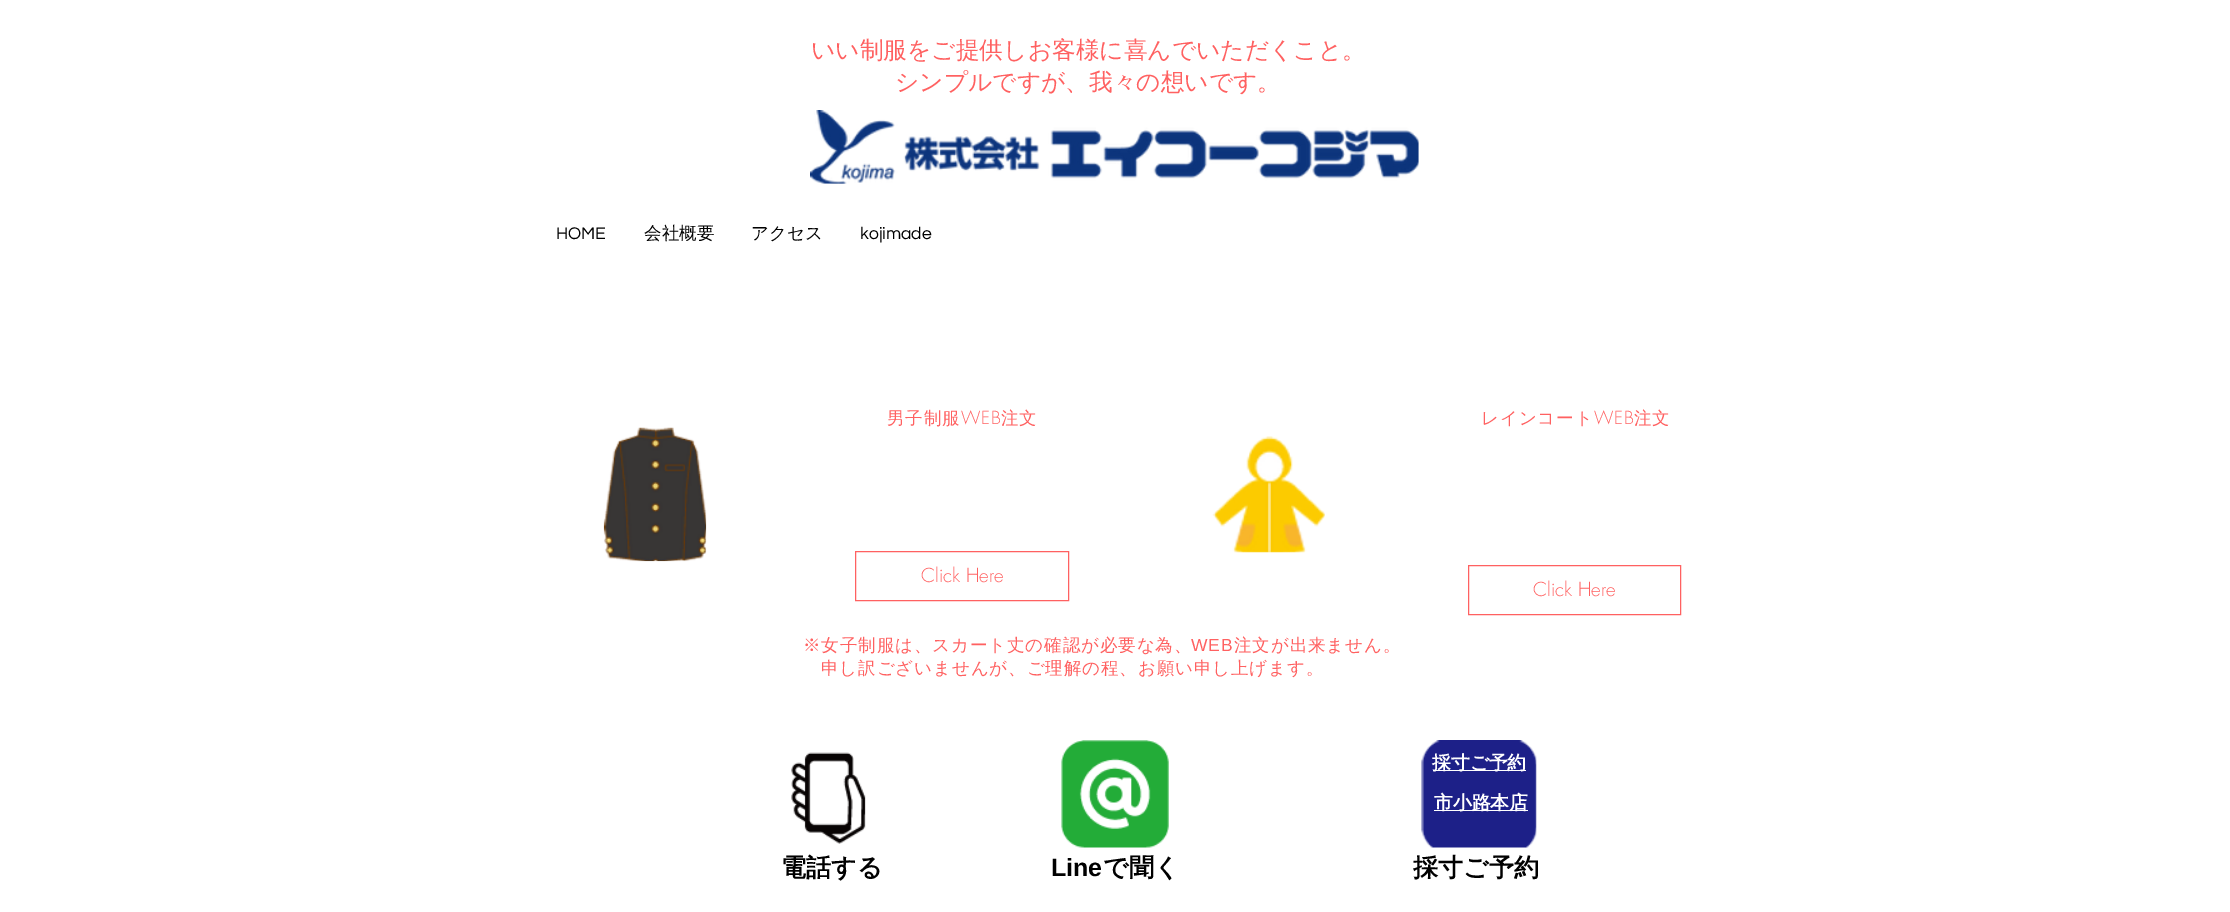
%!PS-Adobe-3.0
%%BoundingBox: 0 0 2230 912
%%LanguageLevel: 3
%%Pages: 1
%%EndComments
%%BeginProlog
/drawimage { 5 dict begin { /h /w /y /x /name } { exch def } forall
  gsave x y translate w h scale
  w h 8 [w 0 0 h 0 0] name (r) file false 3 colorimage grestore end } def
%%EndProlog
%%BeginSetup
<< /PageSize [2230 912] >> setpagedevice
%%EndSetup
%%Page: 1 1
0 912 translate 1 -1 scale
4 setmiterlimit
1 setgray
0 0 2230 912 rectfill
(images/1.raw) 810 110 609 74 drawimage
(images/2.raw) 603 427 104 135 drawimage
1 0.38 0.38 setrgbcolor
855.5 551.5 213 49 rectstroke
(images/3.raw) 1212 436 113 117 drawimage
1468.5 565.5 212 49 rectstroke
(images/4.raw) 791 752 75 92 drawimage
(images/5.raw) 1061 740 108 108 drawimage
(images/6.raw) 1421 740 116 108 drawimage
1 setgray
1433 770 93 1 rectfill
1434 810 94 1 rectfill
/WenQuanYiZenHei-Medium [23.75 0 0 -23.75 0 0] selectfont
1 0.38 0.38 setrgbcolor
811 58 moveto (いい制服をご提供しお客様に喜んでいただくこと。) show
895 90 moveto (シンプルですが、我々の想いです。) show
/Questrial-Regular [17.5 0 0 -17.5 0 0] selectfont
0 setgray
556 239 moveto (HOME) show
/WenQuanYiZenHei-Medium [17.5 0 0 -17.5 0 0] selectfont
644 239 moveto (会社概要) show
751 239 moveto (アクセス) show
/Questrial-Regular [17.5 0 0 -17.5 0 0] selectfont
860 239 moveto (kojimade) show
/WenQuanYiZenHei-Medium [17.5 0 0 -17.5 0 0] selectfont
1 0.38 0.38 setrgbcolor
887 424 moveto 0.9 0 (男子制服) ashow
/futura-Light [17.5 0 0 -17.5 0 0] selectfont
961 424 moveto 0.9 0 (WEB) ashow
/WenQuanYiZenHei-Medium [17.5 0 0 -17.5 0 0] selectfont
1001 424 moveto 0.9 0 (注文) ashow
/futura-Light [18.75 0 0 -18.75 0 0] selectfont
921 582 moveto (Click Here) show
1533 596 moveto (Click Here) show
/WenQuanYiZenHei-Medium [17.5 0 0 -17.5 0 0] selectfont
1481 424 moveto 0.9 0 (レインコート) ashow
/futura-Light [17.5 0 0 -17.5 0 0] selectfont
1594 424 moveto 0.9 0 (WEB) ashow
/WenQuanYiZenHei-Medium [17.5 0 0 -17.5 0 0] selectfont
1634 424 moveto 0.9 0 (注文) ashow
803 651 moveto 0.9 0 (※女子制服は、スカート丈の確認が必要な為、) ashow
/LiberationSans-Regular [17.5 0 0 -17.5 0 0] selectfont
1191 651 moveto 0.9 0 (WEB) ashow
/WenQuanYiZenHei-Medium [17.5 0 0 -17.5 0 0] selectfont
1234 651 moveto 0.9 0 (注文が出来ません。) ashow
821 674 moveto 0.9 0 (申し訳ございませんが、ご理解の程、お願い申し上げます。) ashow
/WenQuanYiZenHei-Bold [18.75 0 0 -18.75 0 0] selectfont
1 setgray
1432 769 moveto (採寸ご予約) show
1434 809 moveto (市小路本店) show
/WenQuanYiZenHei-Bold [25 0 0 -25 0 0] selectfont
0 setgray
781 876 moveto (電話する) show
/LiberationSans-Bold [25 0 0 -25 0 0] selectfont
1051 876 moveto (Line) show
/WenQuanYiZenHei-Bold [25 0 0 -25 0 0] selectfont
1103 876 moveto (で聞く) show
1413 876 moveto (採寸ご予約) show
showpage
%%EOF
